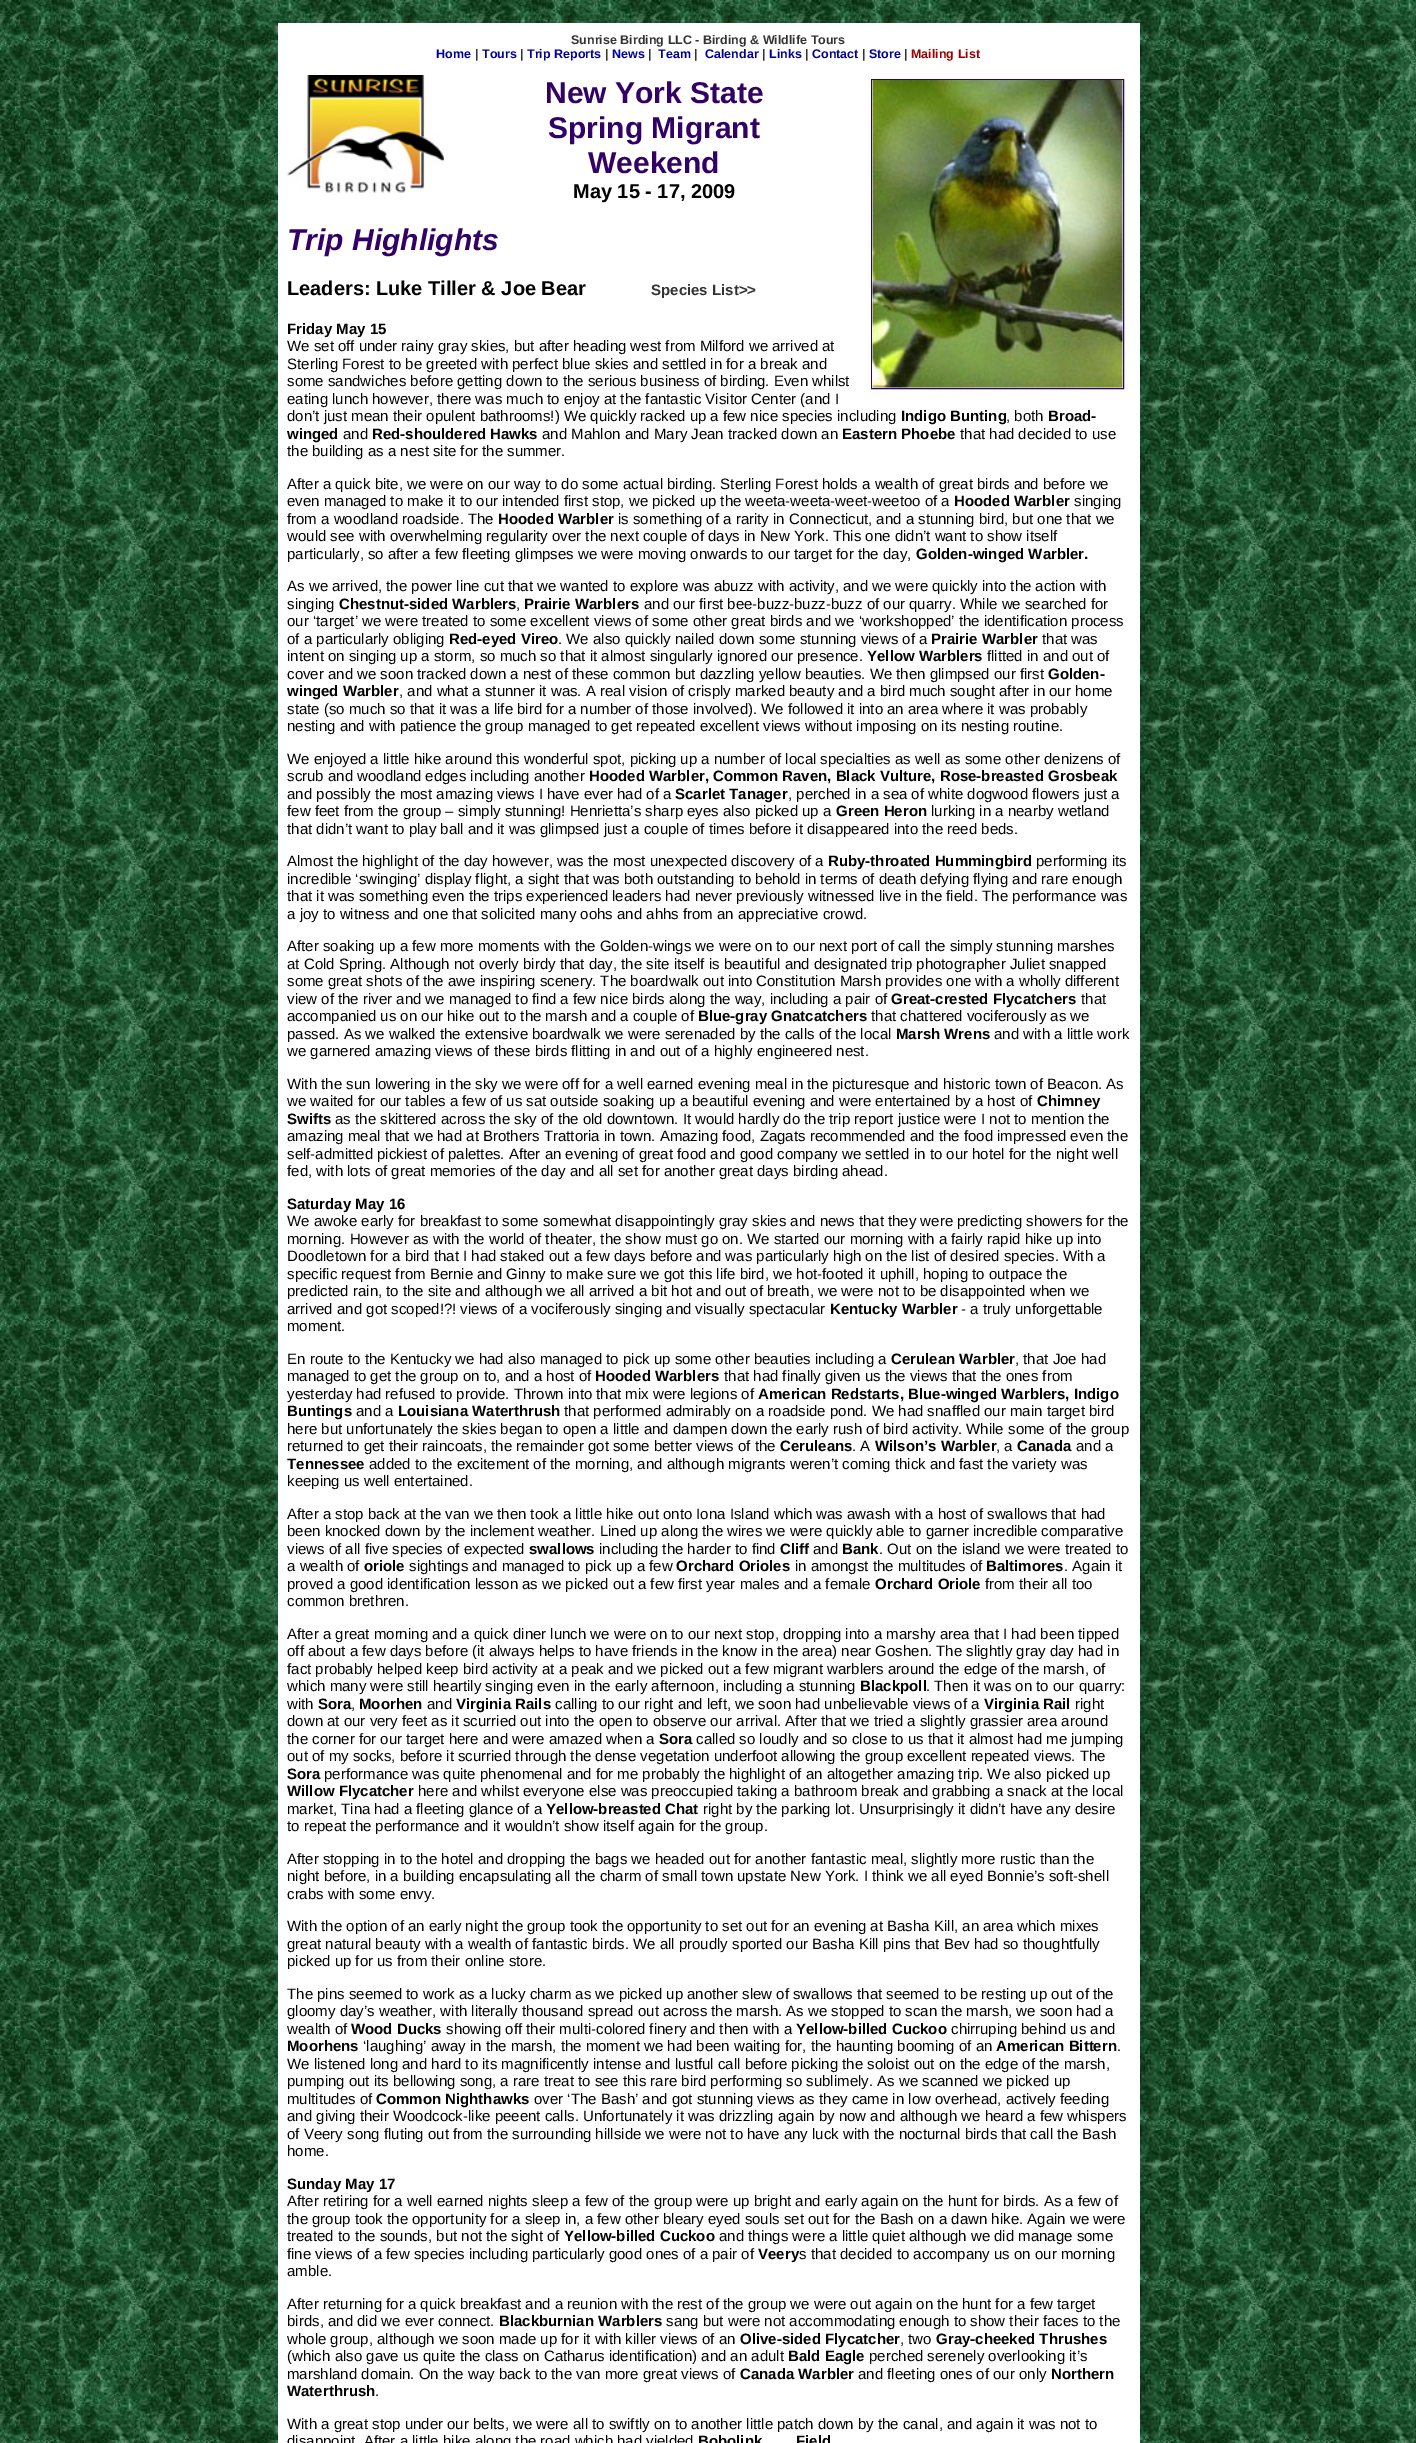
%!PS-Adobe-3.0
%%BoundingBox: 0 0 1416 2443
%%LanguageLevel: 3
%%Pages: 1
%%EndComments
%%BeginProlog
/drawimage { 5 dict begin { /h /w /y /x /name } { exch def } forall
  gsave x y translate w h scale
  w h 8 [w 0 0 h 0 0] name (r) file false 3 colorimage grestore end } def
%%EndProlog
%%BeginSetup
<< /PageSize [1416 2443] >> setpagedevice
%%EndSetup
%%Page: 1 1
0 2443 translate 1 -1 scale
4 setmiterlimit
1 setgray
0 0 1416 2443 rectfill
(images/1.raw) 0 0 1416 2443 drawimage
278 23 862 2420 rectfill
(images/2.raw) 287 75 157 118 drawimage
0.2 0 0.4 setrgbcolor
871.5 79.5 252 309 rectstroke
(images/3.raw) 872 80 251 308 drawimage
/LiberationSans-Bold [12.5 0 0 -12.5 0 0] selectfont
0.2 setgray
571 44 moveto (Sunrise Birding LLC - Birding & Wildlife Tours) show
0 0 0.6 setrgbcolor
436 58 moveto (Home) show
0.2 setgray
475 58 moveto (|) show
0 0 0.6 setrgbcolor
482 58 moveto (Tours) show
0.2 setgray
520 58 moveto (|) show
0 0 0.6 setrgbcolor
527 58 moveto (Trip Reports) show
0.2 setgray
605 58 moveto (|) show
0 0 0.6 setrgbcolor
612 58 moveto (News) show
0.2 setgray
648 58 moveto (|) show
0 0 0.6 setrgbcolor
658 58 moveto (Team) show
0.2 setgray
694 58 moveto (|) show
0 0 0.6 setrgbcolor
705 58 moveto (Calendar) show
0.2 setgray
762 58 moveto (|) show
0 0 0.6 setrgbcolor
769 58 moveto (Links) show
0.2 setgray
805 58 moveto (|) show
0 0 0.6 setrgbcolor
812 58 moveto (Contact) show
0.2 setgray
862 58 moveto (|) show
0 0 0.6 setrgbcolor
869 58 moveto (Store) show
0.2 setgray
904 58 moveto (|) show
0.6 0 0 setrgbcolor
911 58 moveto (Mailing List) show
/LiberationSans-Bold [30 0 0 -30 0 0] selectfont
0.2 0 0.4 setrgbcolor
545 103 moveto (New York State) show
548 138 moveto (Spring Migrant) show
588 173 moveto (Weekend) show
/LiberationSans-Bold [20 0 0 -20 0 0] selectfont
0 setgray
573 198 moveto (May 15 - 17, 2009) show
/LiberationSans-BoldItalic [30 0 0 -30 0 0] selectfont
0.2 0 0.4 setrgbcolor
287 250 moveto (Trip Highlights) show
/LiberationSans-Bold [20 0 0 -20 0 0] selectfont
0 setgray
287 295 moveto (Leaders: Luke Tiller & Joe Bear) show
/LiberationSans-Bold [15 0 0 -15 0 0] selectfont
0.2 setgray
651 295 moveto (Species List>>) show
0 setgray
287 334 moveto (Friday May 15) show
/LiberationSans-Regular [15 0 0 -15 0 0] selectfont
287 351 moveto (We set off under rainy gray skies, but after heading west from Milford we arrived at) show
287 369 moveto (Sterling Forest to be greeted with perfect blue skies and settled in for a break and) show
287 386 moveto (some sandwiches before getting down to the serious business of birding. Even whilst) show
287 404 moveto (eating lunch however, there was much to enjoy at the fantastic Visitor Center \(and I) show
287 421 moveto (don’t just mean their opulent bathrooms!\) We quickly racked up a few nice species including) show
/LiberationSans-Bold [15 0 0 -15 0 0] selectfont
901 421 moveto (Indigo Bunting) show
/LiberationSans-Regular [15 0 0 -15 0 0] selectfont
1006 421 moveto (, both) show
/LiberationSans-Bold [15 0 0 -15 0 0] selectfont
1048 421 moveto (Broad-) show
287 439 moveto (winged) show
/LiberationSans-Regular [15 0 0 -15 0 0] selectfont
343 439 moveto (and) show
/LiberationSans-Bold [15 0 0 -15 0 0] selectfont
372 439 moveto (Red-shouldered Hawks) show
/LiberationSans-Regular [15 0 0 -15 0 0] selectfont
542 439 moveto (and Mahlon and Mary Jean tracked down an) show
/LiberationSans-Bold [15 0 0 -15 0 0] selectfont
842 439 moveto (Eastern Phoebe) show
/LiberationSans-Regular [15 0 0 -15 0 0] selectfont
960 439 moveto (that had decided to use) show
287 456 moveto (the building as a nest site for the summer.) show
287 489 moveto (After a quick bite, we were on our way to do some actual birding. Sterling Forest holds a wealth of great birds and before we) show
287 506 moveto (even managed to make it to our intended first stop, we picked up the weeta-weeta-weet-weetoo of a) show
/LiberationSans-Bold [15 0 0 -15 0 0] selectfont
954 506 moveto (Hooded Warbler) show
/LiberationSans-Regular [15 0 0 -15 0 0] selectfont
1074 506 moveto (singing) show
287 524 moveto (from a woodland roadside. The) show
/LiberationSans-Bold [15 0 0 -15 0 0] selectfont
498 524 moveto (Hooded Warbler) show
/LiberationSans-Regular [15 0 0 -15 0 0] selectfont
618 524 moveto (is something of a rarity in Connecticut, and a stunning bird, but one that we) show
287 541 moveto (would see with overwhelming regularity over the next couple of days in New York. This one didn’t want to show itself) show
287 559 moveto (particularly, so after a few fleeting glimpses we were moving onwards to our target for the day,) show
/LiberationSans-Bold [15 0 0 -15 0 0] selectfont
916 559 moveto (Golden-winged Warbler.) show
/LiberationSans-Regular [15 0 0 -15 0 0] selectfont
287 591 moveto (As we arrived, the power line cut that we wanted to explore was abuzz with activity, and we were quickly into the action with) show
287 609 moveto (singing) show
/LiberationSans-Bold [15 0 0 -15 0 0] selectfont
339 609 moveto (Chestnut-sided Warblers) show
/LiberationSans-Regular [15 0 0 -15 0 0] selectfont
516 609 moveto (,) show
/LiberationSans-Bold [15 0 0 -15 0 0] selectfont
524 609 moveto (Prairie Warblers) show
/LiberationSans-Regular [15 0 0 -15 0 0] selectfont
644 609 moveto (and our first bee-buzz-buzz-buzz of our quarry. While we searched for) show
287 626 moveto (our ‘target’ we were treated to some excellent views of some other great birds and we ‘workshopped’ the identification process) show
287 644 moveto (of a particularly obliging) show
/LiberationSans-Bold [15 0 0 -15 0 0] selectfont
449 644 moveto (Red-eyed Vireo) show
/LiberationSans-Regular [15 0 0 -15 0 0] selectfont
558 644 moveto (. We also quickly nailed down some stunning views of a) show
/LiberationSans-Bold [15 0 0 -15 0 0] selectfont
931 644 moveto (Prairie Warbler) show
/LiberationSans-Regular [15 0 0 -15 0 0] selectfont
1042 644 moveto (that was) show
287 661 moveto (intent on singing up a storm, so much so that it almost singularly ignored our presence.) show
/LiberationSans-Bold [15 0 0 -15 0 0] selectfont
867 661 moveto (Yellow Warblers) show
/LiberationSans-Regular [15 0 0 -15 0 0] selectfont
987 661 moveto (flitted in and out of) show
287 679 moveto (cover and we soon tracked down a nest of these common but dazzling yellow beauties. We then glimpsed our first) show
/LiberationSans-Bold [15 0 0 -15 0 0] selectfont
1048 679 moveto (Golden-) show
287 696 moveto (winged Warbler) show
/LiberationSans-Regular [15 0 0 -15 0 0] selectfont
399 696 moveto (, and what a stunner it was. A real vision of crisply marked beauty and a bird much sought after in our home) show
287 714 moveto (state \(so much so that it was a life bird for a number of those involved\). We followed it into an area where it was probably) show
287 731 moveto (nesting and with patience the group managed to get repeated excellent views without imposing on its nesting routine.) show
287 764 moveto (We enjoyed a little hike around this wonderful spot, picking up a number of local specialties as well as some other denizens of) show
287 781 moveto (scrub and woodland edges including another) show
/LiberationSans-Bold [15 0 0 -15 0 0] selectfont
589 781 moveto (Hooded Warbler, Common Raven, Black Vulture, Rose-breasted Grosbeak) show
/LiberationSans-Regular [15 0 0 -15 0 0] selectfont
287 799 moveto (and possibly the most amazing views I have ever had of a) show
/LiberationSans-Bold [15 0 0 -15 0 0] selectfont
675 799 moveto (Scarlet Tanager) show
/LiberationSans-Regular [15 0 0 -15 0 0] selectfont
788 799 moveto (, perched in a sea of white dogwood flowers just a) show
287 816 moveto (few feet from the group – simply stunning! Henrietta’s sharp eyes also picked up a) show
/LiberationSans-Bold [15 0 0 -15 0 0] selectfont
836 816 moveto (Green Heron) show
/LiberationSans-Regular [15 0 0 -15 0 0] selectfont
931 816 moveto (lurking in a nearby wetland) show
287 834 moveto (that didn’t want to play ball and it was glimpsed just a couple of times before it disappeared into the reed beds.) show
287 866 moveto (Almost the highlight of the day however, was the most unexpected discovery of a) show
/LiberationSans-Bold [15 0 0 -15 0 0] selectfont
828 866 moveto (Ruby-throated Hummingbird) show
/LiberationSans-Regular [15 0 0 -15 0 0] selectfont
1036 866 moveto (performing its) show
287 884 moveto (incredible ‘swinging’ display flight, a sight that was both outstanding to behold in terms of death defying flying and rare enough) show
287 901 moveto (that it was something even the trips experienced leaders had never previously witnessed live in the field. The performance was) show
287 919 moveto (a joy to witness and one that solicited many oohs and ahhs from an appreciative crowd.) show
287 951 moveto (After soaking up a few more moments with the Golden-wings we were on to our next port of call the simply stunning marshes) show
287 969 moveto (at Cold Spring. Although not overly birdy that day, the site itself is beautiful and designated trip photographer Juliet snapped) show
287 986 moveto (some great shots of the awe inspiring scenery. The boardwalk out into Constitution Marsh provides one with a wholly different) show
287 1004 moveto (view of the river and we managed to find a few nice birds along the way, including a pair of) show
/LiberationSans-Bold [15 0 0 -15 0 0] selectfont
891 1004 moveto (Great-crested Flycatchers) show
/LiberationSans-Regular [15 0 0 -15 0 0] selectfont
1081 1004 moveto (that) show
287 1021 moveto (accompanied us on our hike out to the marsh and a couple of) show
/LiberationSans-Bold [15 0 0 -15 0 0] selectfont
698 1021 moveto (Blue-gray Gnatcatchers) show
/LiberationSans-Regular [15 0 0 -15 0 0] selectfont
871 1021 moveto (that chattered vociferously as we) show
287 1039 moveto (passed. As we walked the extensive boardwalk we were serenaded by the calls of the local) show
/LiberationSans-Bold [15 0 0 -15 0 0] selectfont
896 1039 moveto (Marsh Wrens) show
/LiberationSans-Regular [15 0 0 -15 0 0] selectfont
994 1039 moveto (and with a little work) show
287 1056 moveto (we garnered amazing views of these birds flitting in and out of a highly engineered nest.) show
287 1089 moveto (With the sun lowering in the sky we were off for a well earned evening meal in the picturesque and historic town of Beacon. As) show
287 1106 moveto (we waited for our tables a few of us sat outside soaking up a beautiful evening and were entertained by a host of) show
/LiberationSans-Bold [15 0 0 -15 0 0] selectfont
1037 1106 moveto (Chimney) show
287 1124 moveto (Swifts) show
/LiberationSans-Regular [15 0 0 -15 0 0] selectfont
335 1124 moveto (as the skittered across the sky of the old downtown. It would hardly do the trip report justice were I not to mention the) show
287 1141 moveto (amazing meal that we had at Brothers Trattoria in town. Amazing food, Zagats recommended and the food impressed even the) show
287 1159 moveto (self-admitted pickiest of palettes. After an evening of great food and good company we settled in to our hotel for the night well) show
287 1176 moveto (fed, with lots of great memories of the day and all set for another great days birding ahead.) show
/LiberationSans-Bold [15 0 0 -15 0 0] selectfont
287 1209 moveto (Saturday May 16) show
/LiberationSans-Regular [15 0 0 -15 0 0] selectfont
287 1226 moveto (We awoke early for breakfast to some somewhat disappointingly gray skies and news that they were predicting showers for the) show
287 1244 moveto (morning. However as with the world of theater, the show must go on. We started our morning with a fairly rapid hike up into) show
287 1261 moveto (Doodletown for a bird that I had staked out a few days before and was particularly high on the list of desired species. With a) show
287 1279 moveto (specific request from Bernie and Ginny to make sure we got this life bird, we hot-footed it uphill, hoping to outpace the) show
287 1296 moveto (predicted rain, to the site and although we all arrived a bit hot and out of breath, we were not to be disappointed when we) show
287 1314 moveto (arrived and got scoped!?! views of a vociferously singing and visually spectacular) show
/LiberationSans-Bold [15 0 0 -15 0 0] selectfont
830 1314 moveto (Kentucky Warbler) show
/LiberationSans-Regular [15 0 0 -15 0 0] selectfont
961 1314 moveto (- a truly unforgettable) show
287 1331 moveto (moment.) show
287 1364 moveto (En route to the Kentucky we had also managed to pick up some other beauties including a) show
/LiberationSans-Bold [15 0 0 -15 0 0] selectfont
891 1364 moveto (Cerulean Warbler) show
/LiberationSans-Regular [15 0 0 -15 0 0] selectfont
1015 1364 moveto (, that Joe had) show
287 1381 moveto (managed to get the group on to, and a host of) show
/LiberationSans-Bold [15 0 0 -15 0 0] selectfont
595 1381 moveto (Hooded Warblers) show
/LiberationSans-Regular [15 0 0 -15 0 0] selectfont
724 1381 moveto (that had finally given us the views that the ones from) show
287 1399 moveto (yesterday had refused to provide. Thrown into that mix were legions of) show
/LiberationSans-Bold [15 0 0 -15 0 0] selectfont
758 1399 moveto (American Redstarts, Blue-winged Warblers, Indigo) show
287 1416 moveto (Buntings) show
/LiberationSans-Regular [15 0 0 -15 0 0] selectfont
356 1416 moveto (and a) show
/LiberationSans-Bold [15 0 0 -15 0 0] selectfont
398 1416 moveto (Louisiana Waterthrush) show
/LiberationSans-Regular [15 0 0 -15 0 0] selectfont
564 1416 moveto (that performed admirably on a roadside pond. We had snaffled our main target bird) show
287 1434 moveto (here but unfortunately the skies began to open a little and dampen down the early rush of bird activity. While some of the group) show
287 1451 moveto (returned to get their raincoats, the remainder got some better views of the) show
/LiberationSans-Bold [15 0 0 -15 0 0] selectfont
780 1451 moveto (Ceruleans) show
/LiberationSans-Regular [15 0 0 -15 0 0] selectfont
852 1451 moveto (. A) show
/LiberationSans-Bold [15 0 0 -15 0 0] selectfont
875 1451 moveto (Wilson’s Warbler) show
/LiberationSans-Regular [15 0 0 -15 0 0] selectfont
996 1451 moveto (, a) show
/LiberationSans-Bold [15 0 0 -15 0 0] selectfont
1017 1451 moveto (Canada) show
/LiberationSans-Regular [15 0 0 -15 0 0] selectfont
1076 1451 moveto (and a) show
/LiberationSans-Bold [15 0 0 -15 0 0] selectfont
287 1469 moveto (Tennessee) show
/LiberationSans-Regular [15 0 0 -15 0 0] selectfont
369 1469 moveto (added to the excitement of the morning, and although migrants weren’t coming thick and fast the variety was) show
287 1486 moveto (keeping us well entertained.) show
287 1519 moveto (After a stop back at the van we then took a little hike out onto Iona Island which was awash with a host of swallows that had) show
287 1536 moveto (been knocked down by the inclement weather. Lined up along the wires we were quickly able to garner incredible comparative) show
287 1554 moveto (views of all five species of expected) show
/LiberationSans-Bold [15 0 0 -15 0 0] selectfont
529 1554 moveto (swallows) show
/LiberationSans-Regular [15 0 0 -15 0 0] selectfont
599 1554 moveto (including the harder to find) show
/LiberationSans-Bold [15 0 0 -15 0 0] selectfont
780 1554 moveto (Cliff) show
/LiberationSans-Regular [15 0 0 -15 0 0] selectfont
813 1554 moveto (and) show
/LiberationSans-Bold [15 0 0 -15 0 0] selectfont
842 1554 moveto (Bank) show
/LiberationSans-Regular [15 0 0 -15 0 0] selectfont
879 1554 moveto (. Out on the island we were treated to) show
287 1571 moveto (a wealth of) show
/LiberationSans-Bold [15 0 0 -15 0 0] selectfont
364 1571 moveto (oriole) show
/LiberationSans-Regular [15 0 0 -15 0 0] selectfont
409 1571 moveto (sightings and managed to pick up a few) show
/LiberationSans-Bold [15 0 0 -15 0 0] selectfont
676 1571 moveto (Orchard Orioles) show
/LiberationSans-Regular [15 0 0 -15 0 0] selectfont
795 1571 moveto (in amongst the multitudes of) show
/LiberationSans-Bold [15 0 0 -15 0 0] selectfont
986 1571 moveto (Baltimores) show
/LiberationSans-Regular [15 0 0 -15 0 0] selectfont
1064 1571 moveto (. Again it) show
287 1589 moveto (proved a good identification lesson as we picked out a few first year males and a female) show
/LiberationSans-Bold [15 0 0 -15 0 0] selectfont
875 1589 moveto (Orchard Oriole) show
/LiberationSans-Regular [15 0 0 -15 0 0] selectfont
985 1589 moveto (from their all too) show
287 1606 moveto (common brethren.) show
287 1639 moveto (After a great morning and a quick diner lunch we were on to our next stop, dropping into a marshy area that I had been tipped) show
287 1656 moveto (off about a few days before \(it always helps to have friends in the know in the area\) near Goshen. The slightly gray day had in) show
287 1674 moveto (fact probably helped keep bird activity at a peak and we picked out a few migrant warblers around the edge of the marsh, of) show
287 1691 moveto (which many were still heartily singing even in the early afternoon, including a stunning) show
/LiberationSans-Bold [15 0 0 -15 0 0] selectfont
860 1691 moveto (Blackpoll) show
/LiberationSans-Regular [15 0 0 -15 0 0] selectfont
926 1691 moveto (. Then it was on to our quarry:) show
287 1709 moveto (with) show
/LiberationSans-Bold [15 0 0 -15 0 0] selectfont
318 1709 moveto (Sora) show
/LiberationSans-Regular [15 0 0 -15 0 0] selectfont
351 1709 moveto (,) show
/LiberationSans-Bold [15 0 0 -15 0 0] selectfont
359 1709 moveto (Moorhen) show
/LiberationSans-Regular [15 0 0 -15 0 0] selectfont
427 1709 moveto (and) show
/LiberationSans-Bold [15 0 0 -15 0 0] selectfont
456 1709 moveto (Virginia Rails) show
/LiberationSans-Regular [15 0 0 -15 0 0] selectfont
555 1709 moveto (calling to our right and left, we soon had unbelievable views of a) show
/LiberationSans-Bold [15 0 0 -15 0 0] selectfont
984 1709 moveto (Virginia Rail) show
/LiberationSans-Regular [15 0 0 -15 0 0] selectfont
1075 1709 moveto (right) show
287 1726 moveto (down at our very feet as it scurried out into the open to observe our arrival. After that we tried a slightly grassier area around) show
287 1744 moveto (the corner for our target here and were amazed when a) show
/LiberationSans-Bold [15 0 0 -15 0 0] selectfont
659 1744 moveto (Sora) show
/LiberationSans-Regular [15 0 0 -15 0 0] selectfont
696 1744 moveto (called so loudly and so close to us that it almost had me jumping) show
287 1761 moveto (out of my socks, before it scurried through the dense vegetation underfoot allowing the group excellent repeated views. The) show
/LiberationSans-Bold [15 0 0 -15 0 0] selectfont
287 1779 moveto (Sora) show
/LiberationSans-Regular [15 0 0 -15 0 0] selectfont
324 1779 moveto (performance was quite phenomenal and for me probably the highlight of an altogether amazing trip. We also picked up) show
/LiberationSans-Bold [15 0 0 -15 0 0] selectfont
287 1796 moveto (Willow Flycatcher) show
/LiberationSans-Regular [15 0 0 -15 0 0] selectfont
418 1796 moveto (here and whilst everyone else was preoccupied taking a bathroom break and grabbing a snack at the local) show
287 1814 moveto (market, Tina had a fleeting glance of a) show
/LiberationSans-Bold [15 0 0 -15 0 0] selectfont
546 1814 moveto (Yellow-breasted Chat) show
/LiberationSans-Regular [15 0 0 -15 0 0] selectfont
703 1814 moveto (right by the parking lot. Unsurprisingly it didn’t have any desire) show
287 1831 moveto (to repeat the performance and it wouldn’t show itself again for the group.) show
287 1864 moveto (After stopping in to the hotel and dropping the bags we headed out for another fantastic meal, slightly more rustic than the) show
287 1881 moveto (night before, in a building encapsulating all the charm of small town upstate New York. I think we all eyed Bonnie’s soft-shell) show
287 1899 moveto (crabs with some envy.) show
287 1931 moveto (With the option of an early night the group took the opportunity to set out for an evening at Basha Kill, an area which mixes) show
287 1949 moveto (great natural beauty with a wealth of fantastic birds. We all proudly sported our Basha Kill pins that Bev had so thoughtfully) show
287 1966 moveto (picked up for us from their online store.) show
287 1999 moveto (The pins seemed to work as a lucky charm as we picked up another slew of swallows that seemed to be resting up out of the) show
287 2016 moveto (gloomy day’s weather, with literally thousand spread out across the marsh. As we stopped to scan the marsh, we soon had a) show
287 2034 moveto (wealth of) show
/LiberationSans-Bold [15 0 0 -15 0 0] selectfont
351 2034 moveto (Wood Ducks) show
/LiberationSans-Regular [15 0 0 -15 0 0] selectfont
446 2034 moveto (showing off their multi-colored finery and then with a) show
/LiberationSans-Bold [15 0 0 -15 0 0] selectfont
796 2034 moveto (Yellow-billed Cuckoo) show
/LiberationSans-Regular [15 0 0 -15 0 0] selectfont
951 2034 moveto (chirruping behind us and) show
/LiberationSans-Bold [15 0 0 -15 0 0] selectfont
287 2051 moveto (Moorhens) show
/LiberationSans-Regular [15 0 0 -15 0 0] selectfont
363 2051 moveto (‘laughing’ away in the marsh, the moment we had been waiting for, the haunting booming of an) show
/LiberationSans-Bold [15 0 0 -15 0 0] selectfont
996 2051 moveto (American Bittern) show
/LiberationSans-Regular [15 0 0 -15 0 0] selectfont
1117 2051 moveto (.) show
287 2069 moveto (We listened long and hard to its magnificently intense and lustful call before picking the soloist out on the edge of the marsh,) show
287 2086 moveto (pumping out its bellowing song, a rare treat to see this rare bird performing so sublimely. As we scanned we picked up) show
287 2104 moveto (multitudes of) show
/LiberationSans-Bold [15 0 0 -15 0 0] selectfont
376 2104 moveto (Common Nighthawks) show
/LiberationSans-Regular [15 0 0 -15 0 0] selectfont
534 2104 moveto (over ‘The Bash’ and got stunning views as they came in low overhead, actively feeding) show
287 2121 moveto (and giving their Woodcock-like peeent calls. Unfortunately it was drizzling again by now and although we heard a few whispers) show
287 2139 moveto (of Veery song fluting out from the surrounding hillside we were not to have any luck with the nocturnal birds that call the Bash) show
287 2156 moveto (home.) show
/LiberationSans-Bold [15 0 0 -15 0 0] selectfont
287 2189 moveto (Sunday May 17) show
/LiberationSans-Regular [15 0 0 -15 0 0] selectfont
287 2206 moveto (After retiring for a well earned nights sleep a few of the group were up bright and early again on the hunt for birds. As a few of) show
287 2224 moveto (the group took the opportunity for a sleep in, a few other bleary eyed souls set out for the Bash on a dawn hike. Again we were) show
287 2241 moveto (treated to the sounds, but not the sight of) show
/LiberationSans-Bold [15 0 0 -15 0 0] selectfont
564 2241 moveto (Yellow-billed Cuckoo) show
/LiberationSans-Regular [15 0 0 -15 0 0] selectfont
719 2241 moveto (and things were a little quiet although we did manage some) show
287 2259 moveto (fine views of a few species including particularly good ones of a pair of) show
/LiberationSans-Bold [15 0 0 -15 0 0] selectfont
758 2259 moveto (Veery) show
/LiberationSans-Regular [15 0 0 -15 0 0] selectfont
799 2259 moveto (s that decided to accompany us on our morning) show
287 2276 moveto (amble.) show
287 2309 moveto (After returning for a quick breakfast and a reunion with the rest of the group we were out again on the hunt for a few target) show
287 2326 moveto (birds, and did we ever connect.) show
/LiberationSans-Bold [15 0 0 -15 0 0] selectfont
499 2326 moveto (Blackburnian Warblers) show
/LiberationSans-Regular [15 0 0 -15 0 0] selectfont
666 2326 moveto (sang but were not accommodating enough to show their faces to the) show
287 2344 moveto (whole group, although we soon made up for it with killer views of an) show
/LiberationSans-Bold [15 0 0 -15 0 0] selectfont
740 2344 moveto (Olive-sided Flycatcher) show
/LiberationSans-Regular [15 0 0 -15 0 0] selectfont
900 2344 moveto (, two) show
/LiberationSans-Bold [15 0 0 -15 0 0] selectfont
936 2344 moveto (Gray-cheeked Thrushes) show
/LiberationSans-Regular [15 0 0 -15 0 0] selectfont
287 2361 moveto (\(which also gave us quite the class on Catharus identification\) and an adult) show
/LiberationSans-Bold [15 0 0 -15 0 0] selectfont
788 2361 moveto (Bald Eagle) show
/LiberationSans-Regular [15 0 0 -15 0 0] selectfont
869 2361 moveto (perched serenely overlooking it’s) show
287 2379 moveto (marshland domain. On the way back to the van more great views of) show
/LiberationSans-Bold [15 0 0 -15 0 0] selectfont
740 2379 moveto (Canada Warbler) show
/LiberationSans-Regular [15 0 0 -15 0 0] selectfont
858 2379 moveto (and fleeting ones of our only) show
/LiberationSans-Bold [15 0 0 -15 0 0] selectfont
1051 2379 moveto (Northern) show
287 2396 moveto (Waterthrush) show
/LiberationSans-Regular [15 0 0 -15 0 0] selectfont
375 2396 moveto (.) show
287 2429 moveto (With a great stop under our belts, we were all to swiftly on to another little patch down by the canal, and again it was not to) show
287 2446 moveto (disappoint. After a little hike along the road which had yielded) show
/LiberationSans-Bold [15 0 0 -15 0 0] selectfont
698 2446 moveto (Bobolink) show
796 2446 moveto (Field) show
showpage
%%EOF
